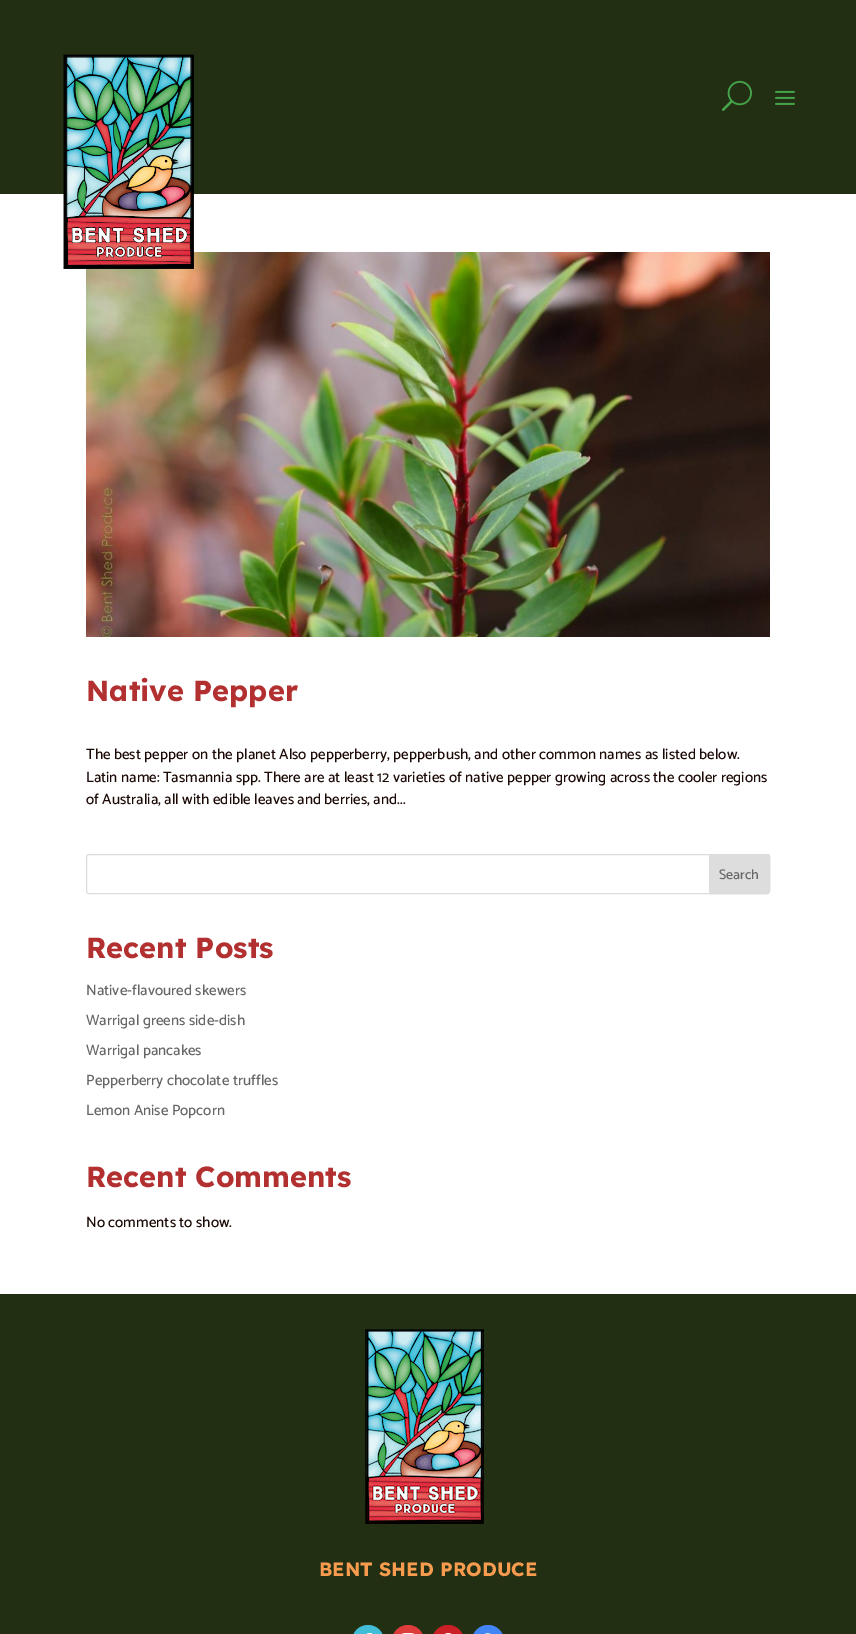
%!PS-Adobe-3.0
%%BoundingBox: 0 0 856 1634
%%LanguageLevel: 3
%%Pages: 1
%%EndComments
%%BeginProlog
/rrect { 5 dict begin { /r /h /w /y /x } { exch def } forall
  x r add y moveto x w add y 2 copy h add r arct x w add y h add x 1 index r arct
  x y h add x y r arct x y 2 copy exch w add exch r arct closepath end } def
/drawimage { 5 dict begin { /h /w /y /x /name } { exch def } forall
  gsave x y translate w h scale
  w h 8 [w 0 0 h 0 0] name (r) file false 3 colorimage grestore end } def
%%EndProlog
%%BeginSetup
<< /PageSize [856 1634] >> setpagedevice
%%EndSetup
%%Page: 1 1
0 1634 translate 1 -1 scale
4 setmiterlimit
1 setgray
0 0 856 1634 rectfill
0.133 0.184 0.075 setrgbcolor
0 0 856 194 rectfill
(images/4.raw) 86 252 684 385 drawimage
(images/1.raw) 63 54 131 215 drawimage
(images/2.raw) 721 80 31 31 drawimage
(images/3.raw) 775 90 20 15 drawimage
0.867 setgray
86.5 854.5 683 39 2.5 rrect stroke
newpath 709.5 854.5 moveto 767 854.5 lineto 768.5 854.5 769.5 855.5 769.5 857 curveto 769.5 891 lineto 769.5 892.5 768.5 893.5 767 893.5 curveto 709.5 893.5 lineto closepath gsave fill grestore
stroke
0.133 0.184 0.075 setrgbcolor
0 1294 856 340 rectfill
(images/5.raw) 365 1329 119 195 drawimage
0.259 0.741 0.843 setrgbcolor
352 1625 32 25 16 rrect fill
(images/6.raw) 366 1633 6 1 drawimage
0.875 0.235 0.235 setrgbcolor
392 1625 32 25 16 rrect fill
(images/7.raw) 401 1633 14 1 drawimage
0.796 0.125 0.153 setrgbcolor
432 1625 32 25 16 rrect fill
(images/8.raw) 444 1633 8 1 drawimage
0.259 0.522 0.957 setrgbcolor
472 1625 32 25 16 rrect fill
(images/9.raw) 484 1633 7 1 drawimage
/LexendDeca-Bold [29 0 0 -29 0 0] selectfont
0.698 0.188 0.188 setrgbcolor
86 701 moveto (Native Pepper) show
/Catamaran-Thin [15 0 0 -15 0 0] selectfont
0.106 0.035 0.02 setrgbcolor
86 759 moveto (The best pepper on the planet Also pepperberry, pepperbush, and other common names as listed below.) show
86 782 moveto (Latin name: Tasmannia spp. There are at least 12 varieties of native pepper growing across the cooler regions) show
86 804 moveto (of Australia, all with edible leaves and berries, and...) show
/Catamaran-Thin [14 0 0 -14 0 0] selectfont
0.4 setgray
719 879 moveto (Search) show
/LexendDeca-Bold [29 0 0 -29 0 0] selectfont
0.698 0.188 0.188 setrgbcolor
86 958 moveto (Recent Posts) show
/Catamaran-Thin [15 0 0 -15 0 0] selectfont
0.4 setgray
86 995 moveto (Native-flavoured skewers) show
86 1025 moveto (Warrigal greens side-dish) show
86 1055 moveto (Warrigal pancakes) show
86 1085 moveto (Pepperberry chocolate truffles) show
86 1115 moveto (Lemon Anise Popcorn) show
/LexendDeca-Bold [29 0 0 -29 0 0] selectfont
0.698 0.188 0.188 setrgbcolor
86 1187 moveto (Recent Comments) show
/Catamaran-Thin [15 0 0 -15 0 0] selectfont
0.106 0.035 0.02 setrgbcolor
86 1227 moveto (No comments to show.) show
/LexendDeca-Bold [19.25 0 0 -19.25 0 0] selectfont
0.969 0.612 0.31 setrgbcolor
319 1576 moveto (BENT SHED PRODUCE) show
showpage
%%EOF
